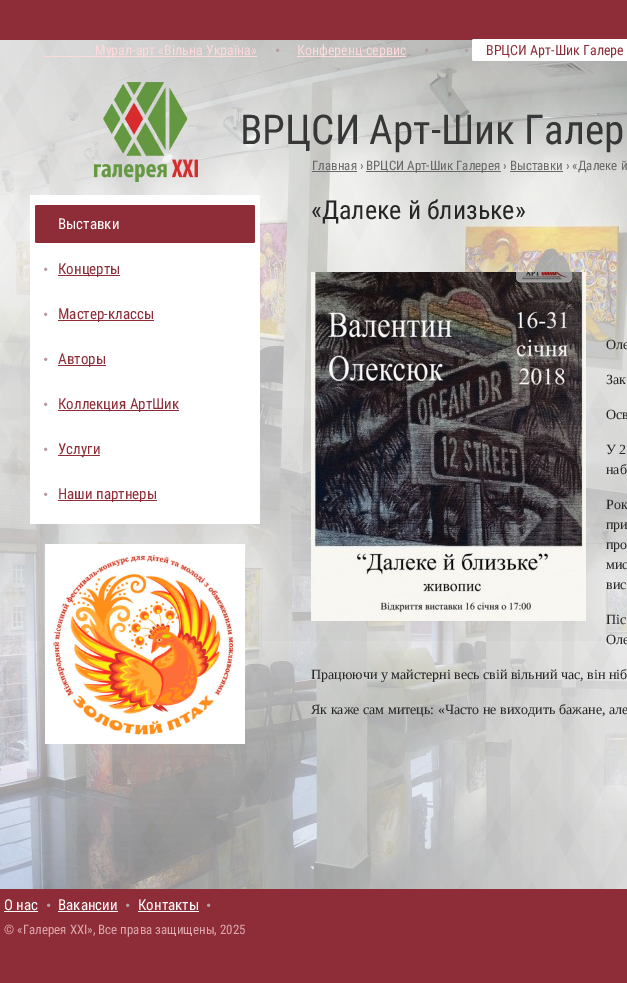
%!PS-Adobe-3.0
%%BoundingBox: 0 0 627 983
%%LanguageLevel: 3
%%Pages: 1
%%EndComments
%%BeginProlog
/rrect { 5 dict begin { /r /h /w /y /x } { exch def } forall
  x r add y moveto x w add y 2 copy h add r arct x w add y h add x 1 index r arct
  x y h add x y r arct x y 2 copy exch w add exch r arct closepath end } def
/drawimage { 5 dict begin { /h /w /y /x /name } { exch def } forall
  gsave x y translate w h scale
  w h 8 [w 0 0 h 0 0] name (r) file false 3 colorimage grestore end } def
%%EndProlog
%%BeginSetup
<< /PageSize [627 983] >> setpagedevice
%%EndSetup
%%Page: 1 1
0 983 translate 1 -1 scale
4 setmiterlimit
1 setgray
0 0 627 983 rectfill
(images/1.raw) 0 40 627 849 drawimage
0.557 0.176 0.216 setrgbcolor
0 0 627 40 rectfill
(images/5.raw) 0 40 627 601 drawimage
1 0.851 0.859 setrgbcolor
44 56 213 1 rectfill
(images/2.raw) 276 48 4 4 drawimage
297 56 109 1 rectfill
(images/3.raw) 425 48 4 4 drawimage
(images/4.raw) 465 48 4 4 drawimage
1 setgray
472 39 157 22 2 rrect fill
(images/6.raw) 0 408 627 481 drawimage
(images/7.raw) 94 82 104 100 drawimage
0.408 setgray
312 171 45 1 rectfill
366 171 135 1 rectfill
510 171 53 1 rectfill
1 setgray
30 195 230 329 rectfill
0.557 0.176 0.216 setrgbcolor
35 205 220 38 2 rrect fill
(images/8.raw) 44 267 4 4 drawimage
58 275 62 1 rectfill
(images/8.raw) 44 312 4 4 drawimage
58 320 96 1 rectfill
(images/8.raw) 44 357 4 4 drawimage
58 365 48 1 rectfill
(images/8.raw) 44 402 4 4 drawimage
58 410 121 1 rectfill
(images/8.raw) 44 447 4 4 drawimage
58 455 42 1 rectfill
(images/8.raw) 44 492 4 4 drawimage
58 500 99 1 rectfill
(images/9.raw) 45 544 200 200 drawimage
(images/10.raw) 311 272 275 349 drawimage
0 889 627 94 rectfill
1 setgray
4 911 34 1 rectfill
(images/11.raw) 47 903 4 4 drawimage
58 911 60 1 rectfill
(images/11.raw) 126 903 4 4 drawimage
138 911 61 1 rectfill
(images/11.raw) 207 903 4 4 drawimage
/RobotoCondensed-Regular [14 0 0 -14 0 0] selectfont
1 0.851 0.859 setrgbcolor
95 55 moveto (Мурал-арт «Вільна Україна») show
297 55 moveto (Конференц-сервис) show
0.557 0.176 0.216 setrgbcolor
486 55 moveto (ВРЦСИ Арт-Шик Галере) show
/RobotoCondensed-Regular [41 0 0 -41 0 0] selectfont
0.216 setgray
240 144 moveto (ВРЦСИ Арт-Шик Галер) show
/RobotoCondensed-Regular [13 0 0 -13 0 0] selectfont
0.408 setgray
312 170 moveto (Главная ›) show
366 170 moveto (ВРЦСИ Арт-Шик Галерея › Выставки › «Далеке й) show
/RobotoCondensed-Regular [15 0 0 -15 0 0] selectfont
1 setgray
58 229 moveto (Выставки) show
0.557 0.176 0.216 setrgbcolor
58 274 moveto (Концерты) show
58 319 moveto (Мастер-классы) show
58 364 moveto (Авторы) show
58 409 moveto (Коллекция АртШик) show
58 454 moveto (Услуги) show
58 499 moveto (Наши партнеры) show
/RobotoCondensed-Regular [26 0 0 -26 0 0] selectfont
0.153 setgray
311 219 moveto («Далеке й близьке») show
/LiberationSerif-Regular [14 0 0 -14 0 0] selectfont
606 349 moveto (Оле) show
606 384 moveto (Зак) show
606 419 moveto (Осв) show
606 454 moveto (У 2) show
606 474 moveto (наб) show
606 509 moveto (Рок) show
606 529 moveto (при) show
606 549 moveto (про) show
606 569 moveto (мис) show
606 589 moveto (вис) show
606 624 moveto (Піс) show
606 644 moveto (Оле) show
311 679 moveto (Працюючи у майстерні весь свій вільний час, він ніб) show
311 714 moveto (Як каже сам митець: «Часто не виходить бажане, але) show
/RobotoCondensed-Regular [15 0 0 -15 0 0] selectfont
1 setgray
4 910 moveto (О нас) show
58 910 moveto (Вакансии) show
138 910 moveto (Контакты) show
/RobotoCondensed-Regular [13 0 0 -13 0 0] selectfont
0.867 0.659 0.682 setrgbcolor
4 934 moveto (© «Галерея ХХІ», Все права защищены, 2025) show
showpage
%%EOF
